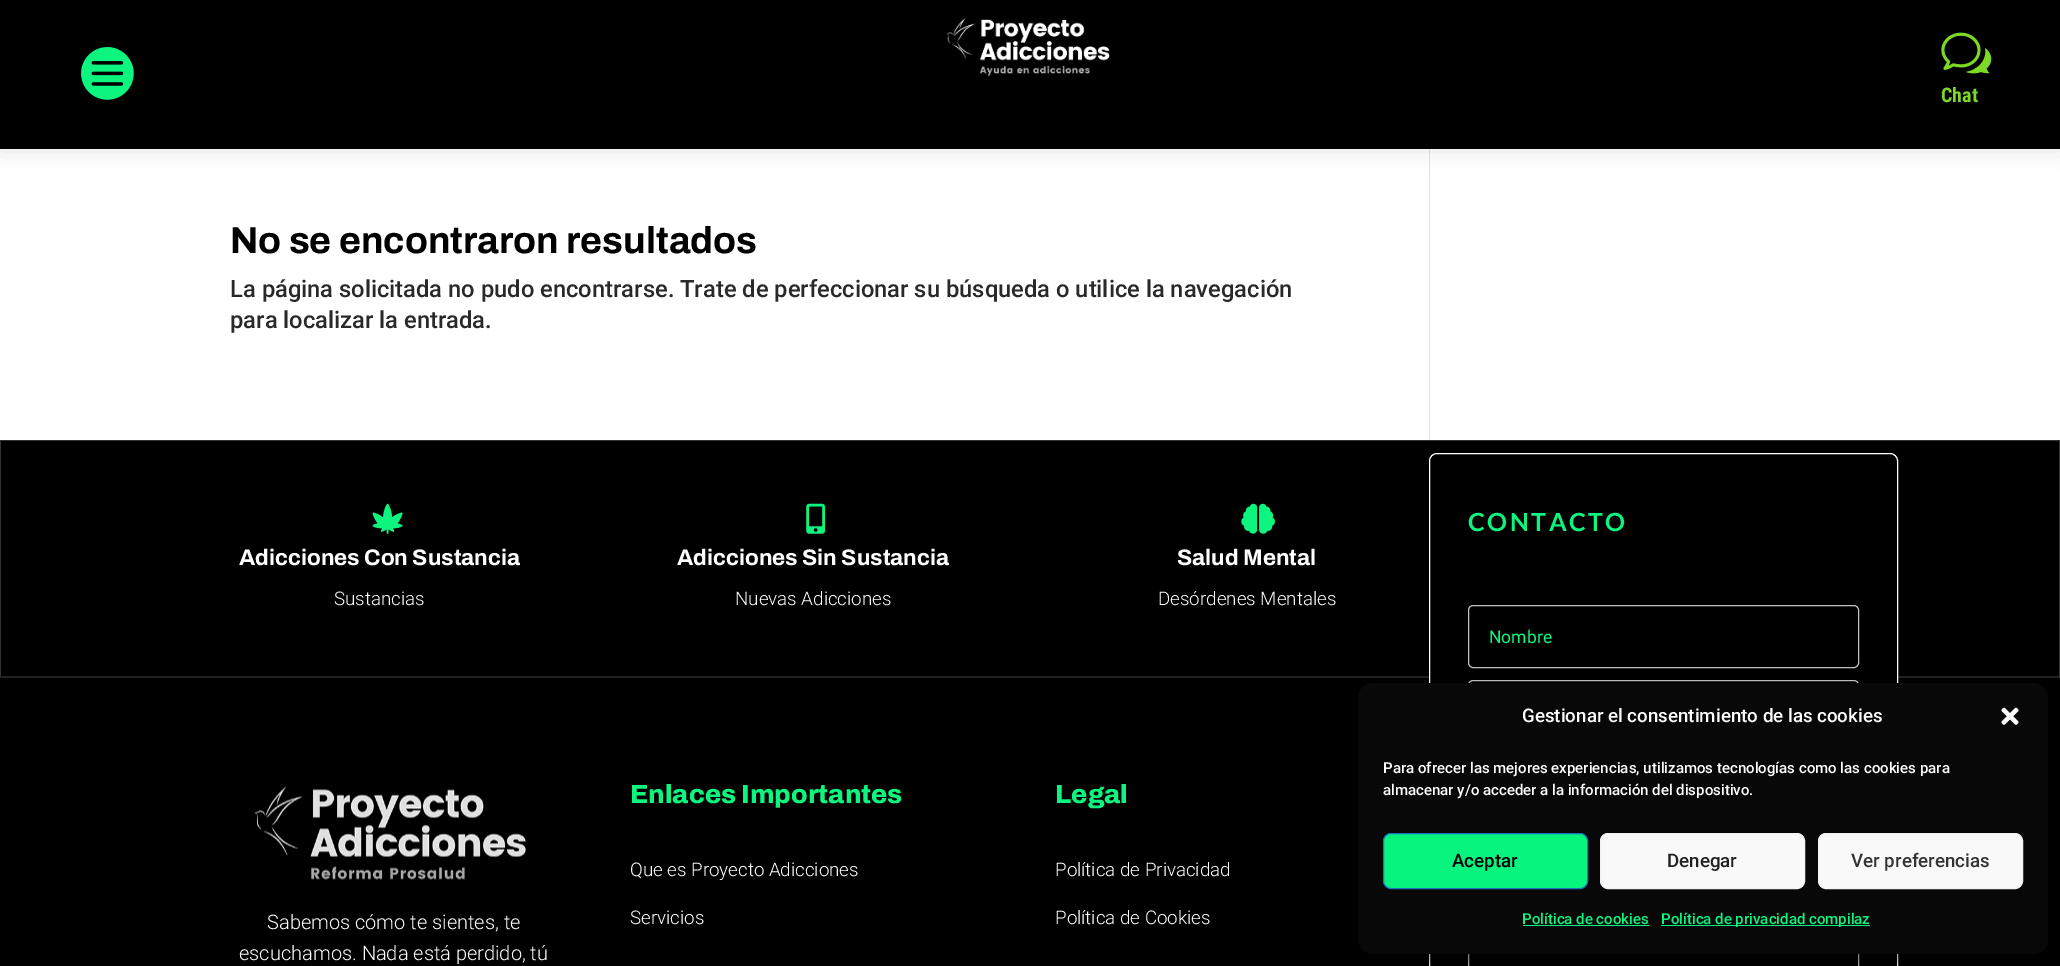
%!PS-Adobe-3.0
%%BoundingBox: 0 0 2060 966
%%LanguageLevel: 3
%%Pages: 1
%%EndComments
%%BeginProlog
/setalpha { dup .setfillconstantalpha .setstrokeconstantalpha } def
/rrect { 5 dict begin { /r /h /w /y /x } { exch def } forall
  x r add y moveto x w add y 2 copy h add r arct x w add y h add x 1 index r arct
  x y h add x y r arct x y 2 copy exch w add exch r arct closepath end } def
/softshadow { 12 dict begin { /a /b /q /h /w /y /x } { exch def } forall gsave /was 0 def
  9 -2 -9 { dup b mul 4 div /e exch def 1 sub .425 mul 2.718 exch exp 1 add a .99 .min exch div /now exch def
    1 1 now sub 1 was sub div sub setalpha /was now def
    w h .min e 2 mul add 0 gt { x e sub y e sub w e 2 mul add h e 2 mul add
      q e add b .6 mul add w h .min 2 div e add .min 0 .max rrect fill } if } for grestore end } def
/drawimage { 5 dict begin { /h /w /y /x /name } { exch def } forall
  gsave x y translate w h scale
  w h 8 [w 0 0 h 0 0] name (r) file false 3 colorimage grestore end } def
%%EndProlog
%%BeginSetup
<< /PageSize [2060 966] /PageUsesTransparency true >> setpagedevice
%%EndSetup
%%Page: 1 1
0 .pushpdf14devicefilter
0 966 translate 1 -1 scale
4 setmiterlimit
1 setgray
0 0 2060 966 rectfill
0.886 setgray
1429 149 1 291 rectfill
0 setgray
0 3 2060 148 0 11 0.1 softshadow
0 0 2060 149 rectfill
(images/1.raw) 81 47 53 53 drawimage
(images/2.raw) 946 18 164 59 drawimage
(images/3.raw) 1941 32 51 42 drawimage
0 441 2060 525 rectfill
0.2 setgray
0 440 2060 1 rectfill
newpath 2060 440 moveto 2060 678 lineto 2059 676 lineto 2059 441 lineto closepath fill
0.13 setalpha
1 setgray
newpath 2060 678 moveto 0 678 lineto 1 676 lineto 2059 676 lineto closepath fill
1 setalpha
0 setgray
1429.5 453.5 468 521 7.5 rrect gsave fill grestore
1 setgray
stroke
0.749 setgray
1468.5 605.5 390 62 4.5 rrect stroke
1468.5 680.5 390 62 4.5 rrect stroke
1468.5 829.5 390 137 rectstroke
(images/4.raw) 254 786 272 94 drawimage
0.2 setgray
newpath 0 678 moveto 0 440 lineto 1 441 lineto 1 676 lineto closepath fill
(images/5.raw) 372 503 31 31 drawimage
(images/6.raw) 806 503 19 31 drawimage
(images/7.raw) 1241 503 34 31 drawimage
0 setgray
1358 690 690 271 15 4 0.23 softshadow
1358 695 690 271 15 12.5 0.19 softshadow
0.031 setgray
1358 683 690 271 15 rrect fill
(images/8.raw) 2001 707 18 18 drawimage
0.027 0.961 0.494 setrgbcolor
1383.5 833.5 204 55 7.5 rrect gsave fill grestore
0.118 0.451 0.745 setrgbcolor
stroke
0.976 setgray
1600.5 833.5 204 55 7.5 rrect gsave fill grestore
0.949 setgray
stroke
0.976 setgray
1818.5 833.5 204 55 7.5 rrect gsave fill grestore
0.949 setgray
stroke
0.027 0.961 0.494 setrgbcolor
1523 925 126 1 rectfill
1661 925 209 1 rectfill
/RobotoCondensed-Bold [20 0 0 -20 0 0] selectfont
0.486 0.855 0.141 setrgbcolor
1941 102 moveto (Chat) show
/Archivo-SemiBold [37.5 0 0 -37.5 0 0] selectfont
0 setgray
230 253 moveto (No se encontraron resultados) show
/Roboto-Medium [23.75 0 0 -23.75 0 0] selectfont
0.161 setgray
230 297 moveto (La página solicitada no pudo encontrarse. Trate de perfeccionar su búsqueda o utilice la navegación) show
230 328 moveto (para localizar la entrada.) show
/Lato-Bold [25 0 0 -25 0 0] selectfont
0.047 0.961 0.494 setrgbcolor
1468 531 moveto 2.5 0 (CONTACTO) ashow
/Roboto-Regular [17.5 0 0 -17.5 0 0] selectfont
1489 643 moveto (Nombre) show
/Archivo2-SemiBold [26.25 0 0 -26.25 0 0] selectfont
630 803 moveto (Enlaces Importantes) show
/Roboto-Light [18.75 0 0 -18.75 0 0] selectfont
1 setgray
630 876 moveto (Que es Proyecto Adicciones) show
630 924 moveto (Servicios) show
/Archivo2-SemiBold [26.25 0 0 -26.25 0 0] selectfont
0.047 0.961 0.494 setrgbcolor
1055 803 moveto (Legal) show
/Roboto-Light [18.75 0 0 -18.75 0 0] selectfont
1 setgray
1055 876 moveto (Política de Privacidad) show
1055 924 moveto (Política de Cookies) show
/Roboto-Light [20 0 0 -20 0 0] selectfont
267 929 moveto (Sabemos cómo te sientes, te) show
239 960 moveto (escuchamos. Nada está perdido, tú) show
/Archivo-SemiBold [22.5 0 0 -22.5 0 0] selectfont
239 565 moveto (Adicciones Con Sustancia) show
/Roboto-Light [18.75 0 0 -18.75 0 0] selectfont
334 605 moveto (Sustancias) show
/Archivo-SemiBold [22.5 0 0 -22.5 0 0] selectfont
677 565 moveto (Adicciones Sin Sustancia) show
/Roboto-Light [18.75 0 0 -18.75 0 0] selectfont
735 605 moveto (Nuevas Adicciones) show
/Archivo-SemiBold [22.5 0 0 -22.5 0 0] selectfont
1177 565 moveto (Salud Mental) show
/Roboto-Light [18.75 0 0 -18.75 0 0] selectfont
1158 605 moveto (Desórdenes Mentales) show
/Roboto-Medium [18.75 0 0 -18.75 0 0] selectfont
1522 722 moveto (Gestionar el consentimiento de las cookies) show
/Roboto-Medium [15 0 0 -15 0 0] selectfont
1383 773 moveto (Para ofrecer las mejores experiencias, utilizamos tecnologías como las cookies para) show
1383 795 moveto (almacenar y/o acceder a la información del dispositivo.) show
/Roboto-Medium [18.75 0 0 -18.75 0 0] selectfont
0 setgray
1452 867 moveto (Aceptar) show
0.133 setgray
1667 867 moveto (Denegar) show
0.2 setgray
1851 867 moveto (Ver preferencias) show
/Roboto-Medium [15 0 0 -15 0 0] selectfont
0.047 0.961 0.494 setrgbcolor
1522 924 moveto (Política de cookies) show
1661 924 moveto (Política de privacidad compilaz) show
.poppdf14devicefilter showpage
%%EOF
